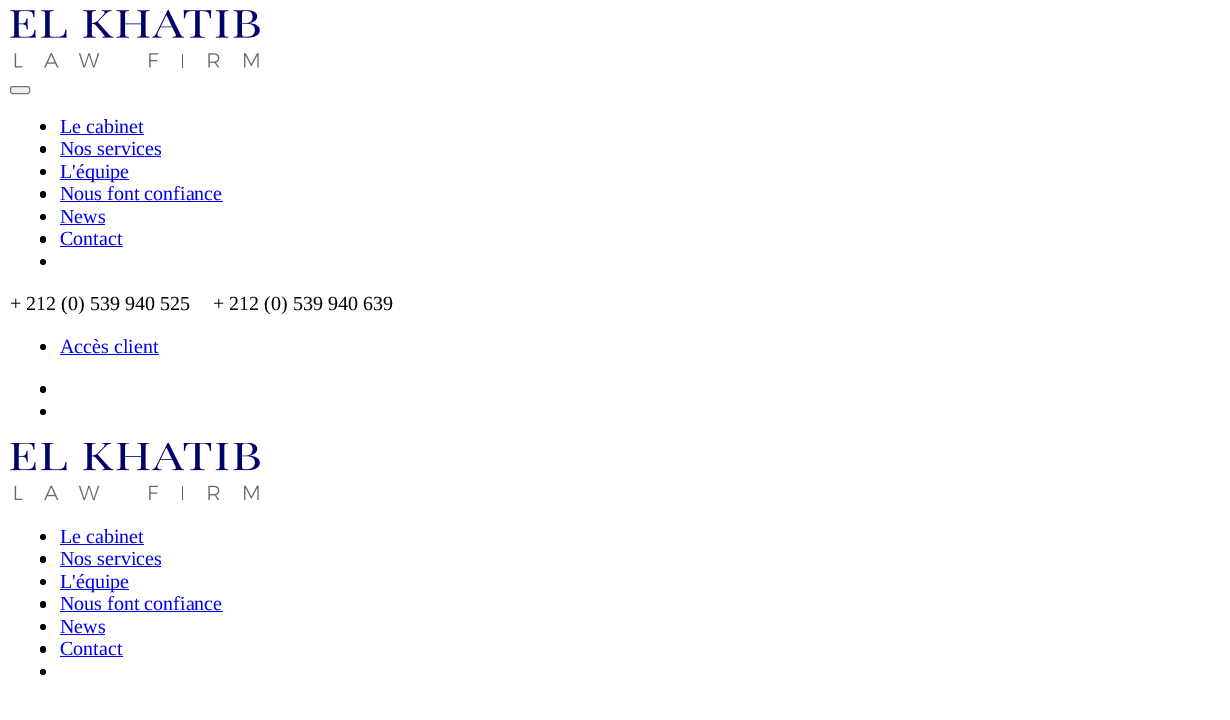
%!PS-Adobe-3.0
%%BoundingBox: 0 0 1230 720
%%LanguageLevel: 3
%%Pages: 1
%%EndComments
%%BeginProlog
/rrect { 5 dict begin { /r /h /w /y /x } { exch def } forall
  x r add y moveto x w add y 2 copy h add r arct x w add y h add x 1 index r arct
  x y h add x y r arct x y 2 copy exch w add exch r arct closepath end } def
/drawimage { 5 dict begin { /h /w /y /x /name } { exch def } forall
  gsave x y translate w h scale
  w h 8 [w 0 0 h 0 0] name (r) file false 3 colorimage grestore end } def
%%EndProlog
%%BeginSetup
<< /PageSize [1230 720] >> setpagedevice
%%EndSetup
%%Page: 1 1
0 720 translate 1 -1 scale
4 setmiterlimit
1 setgray
0 0 1230 720 rectfill
(images/1.raw) 10 10 250 58 drawimage
0.937 setgray
10.5 86.5 19 7 2 rrect gsave fill grestore
0.463 setgray
stroke
0 setgray
newpath 43 127 3 0 360 arc closepath fill
0 0 0.933 setrgbcolor
60 134 84 1 rectfill
0 setgray
40 146 6 7 3 rrect fill
0 0 0.933 setrgbcolor
60 156 101 1 rectfill
0 setgray
newpath 43 172 3 0 360 arc closepath fill
0 0 0.933 setrgbcolor
60 179 69 1 rectfill
0 setgray
40 191 6 7 3 rrect fill
0 0 0.933 setrgbcolor
60 201 163 1 rectfill
0 setgray
newpath 43 217 3 0 360 arc closepath fill
0 0 0.933 setrgbcolor
60 224 45 1 rectfill
0 setgray
40 236 6 7 3 rrect fill
0 0 0.933 setrgbcolor
60 246 63 1 rectfill
0 setgray
newpath 43 262 3 0 360 arc closepath fill
newpath 43 347 3 0 360 arc closepath fill
0 0 0.933 setrgbcolor
60 354 99 1 rectfill
0 setgray
40 386 6 7 3 rrect fill
newpath 43 412 3 0 360 arc closepath fill
(images/2.raw) 10 443 250 57 drawimage
newpath 43 537 3 0 360 arc closepath fill
0 0 0.933 setrgbcolor
60 544 84 1 rectfill
0 setgray
40 556 6 7 3 rrect fill
0 0 0.933 setrgbcolor
60 566 101 1 rectfill
0 setgray
newpath 43 582 3 0 360 arc closepath fill
0 0 0.933 setrgbcolor
60 589 69 1 rectfill
0 setgray
40 601 6 7 3 rrect fill
0 0 0.933 setrgbcolor
60 611 163 1 rectfill
0 setgray
newpath 43 627 3 0 360 arc closepath fill
0 0 0.933 setrgbcolor
60 634 45 1 rectfill
0 setgray
40 646 6 7 3 rrect fill
0 0 0.933 setrgbcolor
60 656 63 1 rectfill
0 setgray
newpath 43 672 3 0 360 arc closepath fill
/LiberationSerif-Regular [20 0 0 -20 0 0] selectfont
0 0 0.933 setrgbcolor
60 133 moveto (Le cabinet) show
60 155 moveto (Nos services) show
60 178 moveto (L'équipe) show
60 200 moveto (Nous font confiance) show
60 223 moveto (News) show
60 245 moveto (Contact) show
0 setgray
10 310 moveto (+ 212 \(0\) 539 940 525) show
213 310 moveto (+ 212 \(0\) 539 940 639) show
0 0 0.933 setrgbcolor
60 353 moveto (Accès client) show
60 543 moveto (Le cabinet) show
60 565 moveto (Nos services) show
60 588 moveto (L'équipe) show
60 610 moveto (Nous font confiance) show
60 633 moveto (News) show
60 655 moveto (Contact) show
showpage
%%EOF
